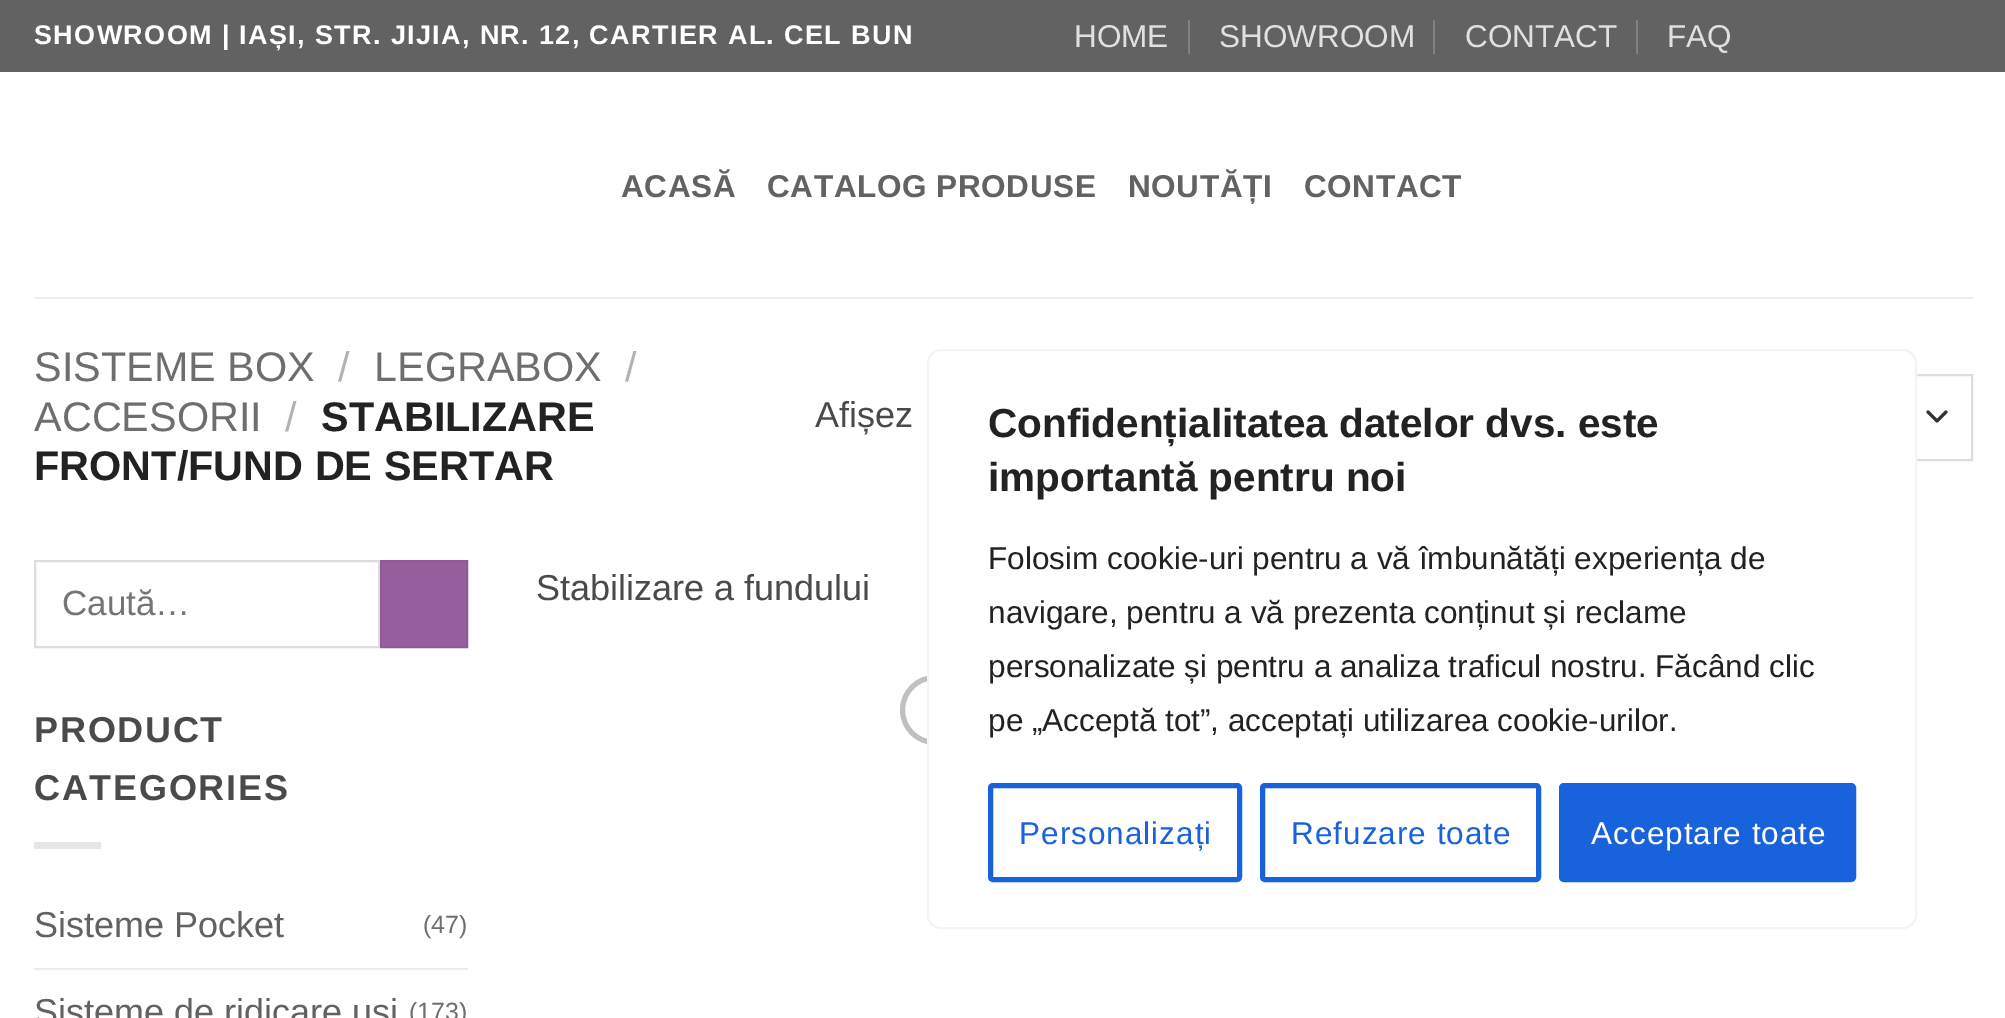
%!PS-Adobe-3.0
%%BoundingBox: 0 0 2005 1018
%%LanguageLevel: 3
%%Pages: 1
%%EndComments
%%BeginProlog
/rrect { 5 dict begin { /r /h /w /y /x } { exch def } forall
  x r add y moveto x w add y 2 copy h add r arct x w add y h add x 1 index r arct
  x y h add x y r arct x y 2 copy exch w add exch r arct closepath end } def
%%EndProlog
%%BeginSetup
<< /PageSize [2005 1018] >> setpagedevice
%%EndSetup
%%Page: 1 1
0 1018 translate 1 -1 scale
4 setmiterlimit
1 setgray
0 0 2005 1018 rectfill
0.384 setgray
0 0 2005 72 rectfill
0.506 setgray
1188 20 2 34 rectfill
1433 20 2 34 rectfill
1636 20 2 34 rectfill
0.929 setgray
34 297 1939 2 rectfill
0.2 setgray
3 setlinewidth
1 setlinecap
1 setlinejoin
newpath 1928 412 moveto 1937 421 lineto 1946 412 lineto stroke
0.867 setgray
2 setlinewidth
0 setlinecap
0 setlinejoin
1295 375 677 85 rectstroke
35 561 344 86 rectstroke
0.588 0.376 0.62 setrgbcolor
newpath 381 561 moveto 467 561 lineto 467 647 lineto 381 647 lineto closepath gsave fill grestore
0.561 0.357 0.588 setrgbcolor
stroke
0.902 setgray
34 842 67 7 rectfill
0.925 setgray
34 968 434 2 rectfill
0.753 setgray
5 setlinewidth
newpath 935 710 32.5 0 360 arc closepath stroke
1 setgray
928 350 988 578 13 rrect gsave fill grestore
0.957 setgray
2 setlinewidth
stroke
0.094 0.388 0.863 setrgbcolor
5 setlinewidth
990.5 785.5 249 94 2.5 rrect stroke
1262.5 785.5 276 94 2.5 rrect stroke
1561.5 785.5 292 94 2.5 rrect gsave fill grestore
stroke
/LiberationSans-Bold [27 0 0 -27 0 0] selectfont
1 setgray
34 44 moveto 1.35 0 (SHOWROOM | IAȘI, STR. JIJIA, NR. 12, CARTIER AL. CEL BUN) ashow
/LiberationSans-Regular [31.5 0 0 -31.5 0 0] selectfont
0.878 setgray
1074 47 moveto (HOME) show
1219 47 moveto (SHOWROOM) show
1465 47 moveto (CONTACT) show
1667 47 moveto (FAQ) show
/LiberationSans-Bold [31.5 0 0 -31.5 0 0] selectfont
0.384 setgray
621 197 moveto 0.6 0 (ACASĂ) ashow
767 197 moveto 0.6 0 (CATALOG PRODUSE) ashow
1128 197 moveto 0.6 0 (NOUTĂȚI) ashow
1304 197 moveto 0.6 0 (CONTACT) ashow
/LiberationSans-Regular [41.4 0 0 -41.4 0 0] selectfont
0.431 setgray
34 381 moveto (SISTEME BOX) show
0.698 setgray
338 381 moveto (/) show
0.431 setgray
374 381 moveto (LEGRABOX) show
0.698 setgray
625 381 moveto (/) show
0.431 setgray
34 431 moveto (ACCESORII) show
0.698 setgray
285 431 moveto (/) show
/LiberationSans-Bold [41.4 0 0 -41.4 0 0] selectfont
0.133 setgray
321 431 moveto (STABILIZARE) show
34 480 moveto (FRONT/FUND DE SERTAR) show
/LiberationSans-Regular [36 0 0 -36 0 0] selectfont
0.29 setgray
815 427 moveto (Afișez) show
/LiberationSans-Regular [35 0 0 -35 0 0] selectfont
0.459 setgray
62 615 moveto (Caută…) show
/LiberationSans-Bold [36 0 0 -36 0 0] selectfont
0.29 setgray
34 742 moveto 1.75 0 (PRODUCT) ashow
34 800 moveto 1.75 0 (CATEGORIES) ashow
/LiberationSans-Regular [36 0 0 -36 0 0] selectfont
0.384 setgray
34 937 moveto (Sisteme Pocket) show
/LiberationSans-Regular [25 0 0 -25 0 0] selectfont
0.431 setgray
423 933 moveto (\(47\)) show
/LiberationSans-Regular [36 0 0 -36 0 0] selectfont
0.384 setgray
34 1024 moveto (Sisteme de ridicare uşi) show
/LiberationSans-Regular [25 0 0 -25 0 0] selectfont
0.431 setgray
409 1020 moveto (\(173\)) show
/LiberationSans-Regular [36 0 0 -36 0 0] selectfont
0.29 setgray
536 600 moveto (Stabilizare a fundului) show
/LiberationSans-Bold [40.5 0 0 -40.5 0 0] selectfont
0.133 setgray
988 437 moveto (Confidențialitatea datelor dvs. este) show
988 491 moveto (importantă pentru noi) show
/LiberationSans-Regular [31.5 0 0 -31.5 0 0] selectfont
988 569 moveto (Folosim cookie-uri pentru a vă îmbunătăți experiența de) show
988 623 moveto (navigare, pentru a vă prezenta conținut și reclame) show
988 677 moveto (personalizate și pentru a analiza traficul nostru. Făcând clic) show
988 731 moveto (pe „Acceptă tot”, acceptați utilizarea cookie-urilor.) show
0.094 0.388 0.863 setrgbcolor
1019 844 moveto 1 0 (Personalizați) ashow
1291 844 moveto 1 0 (Refuzare toate) ashow
1 setgray
1591 844 moveto 1 0 (Acceptare toate) ashow
showpage
%%EOF
